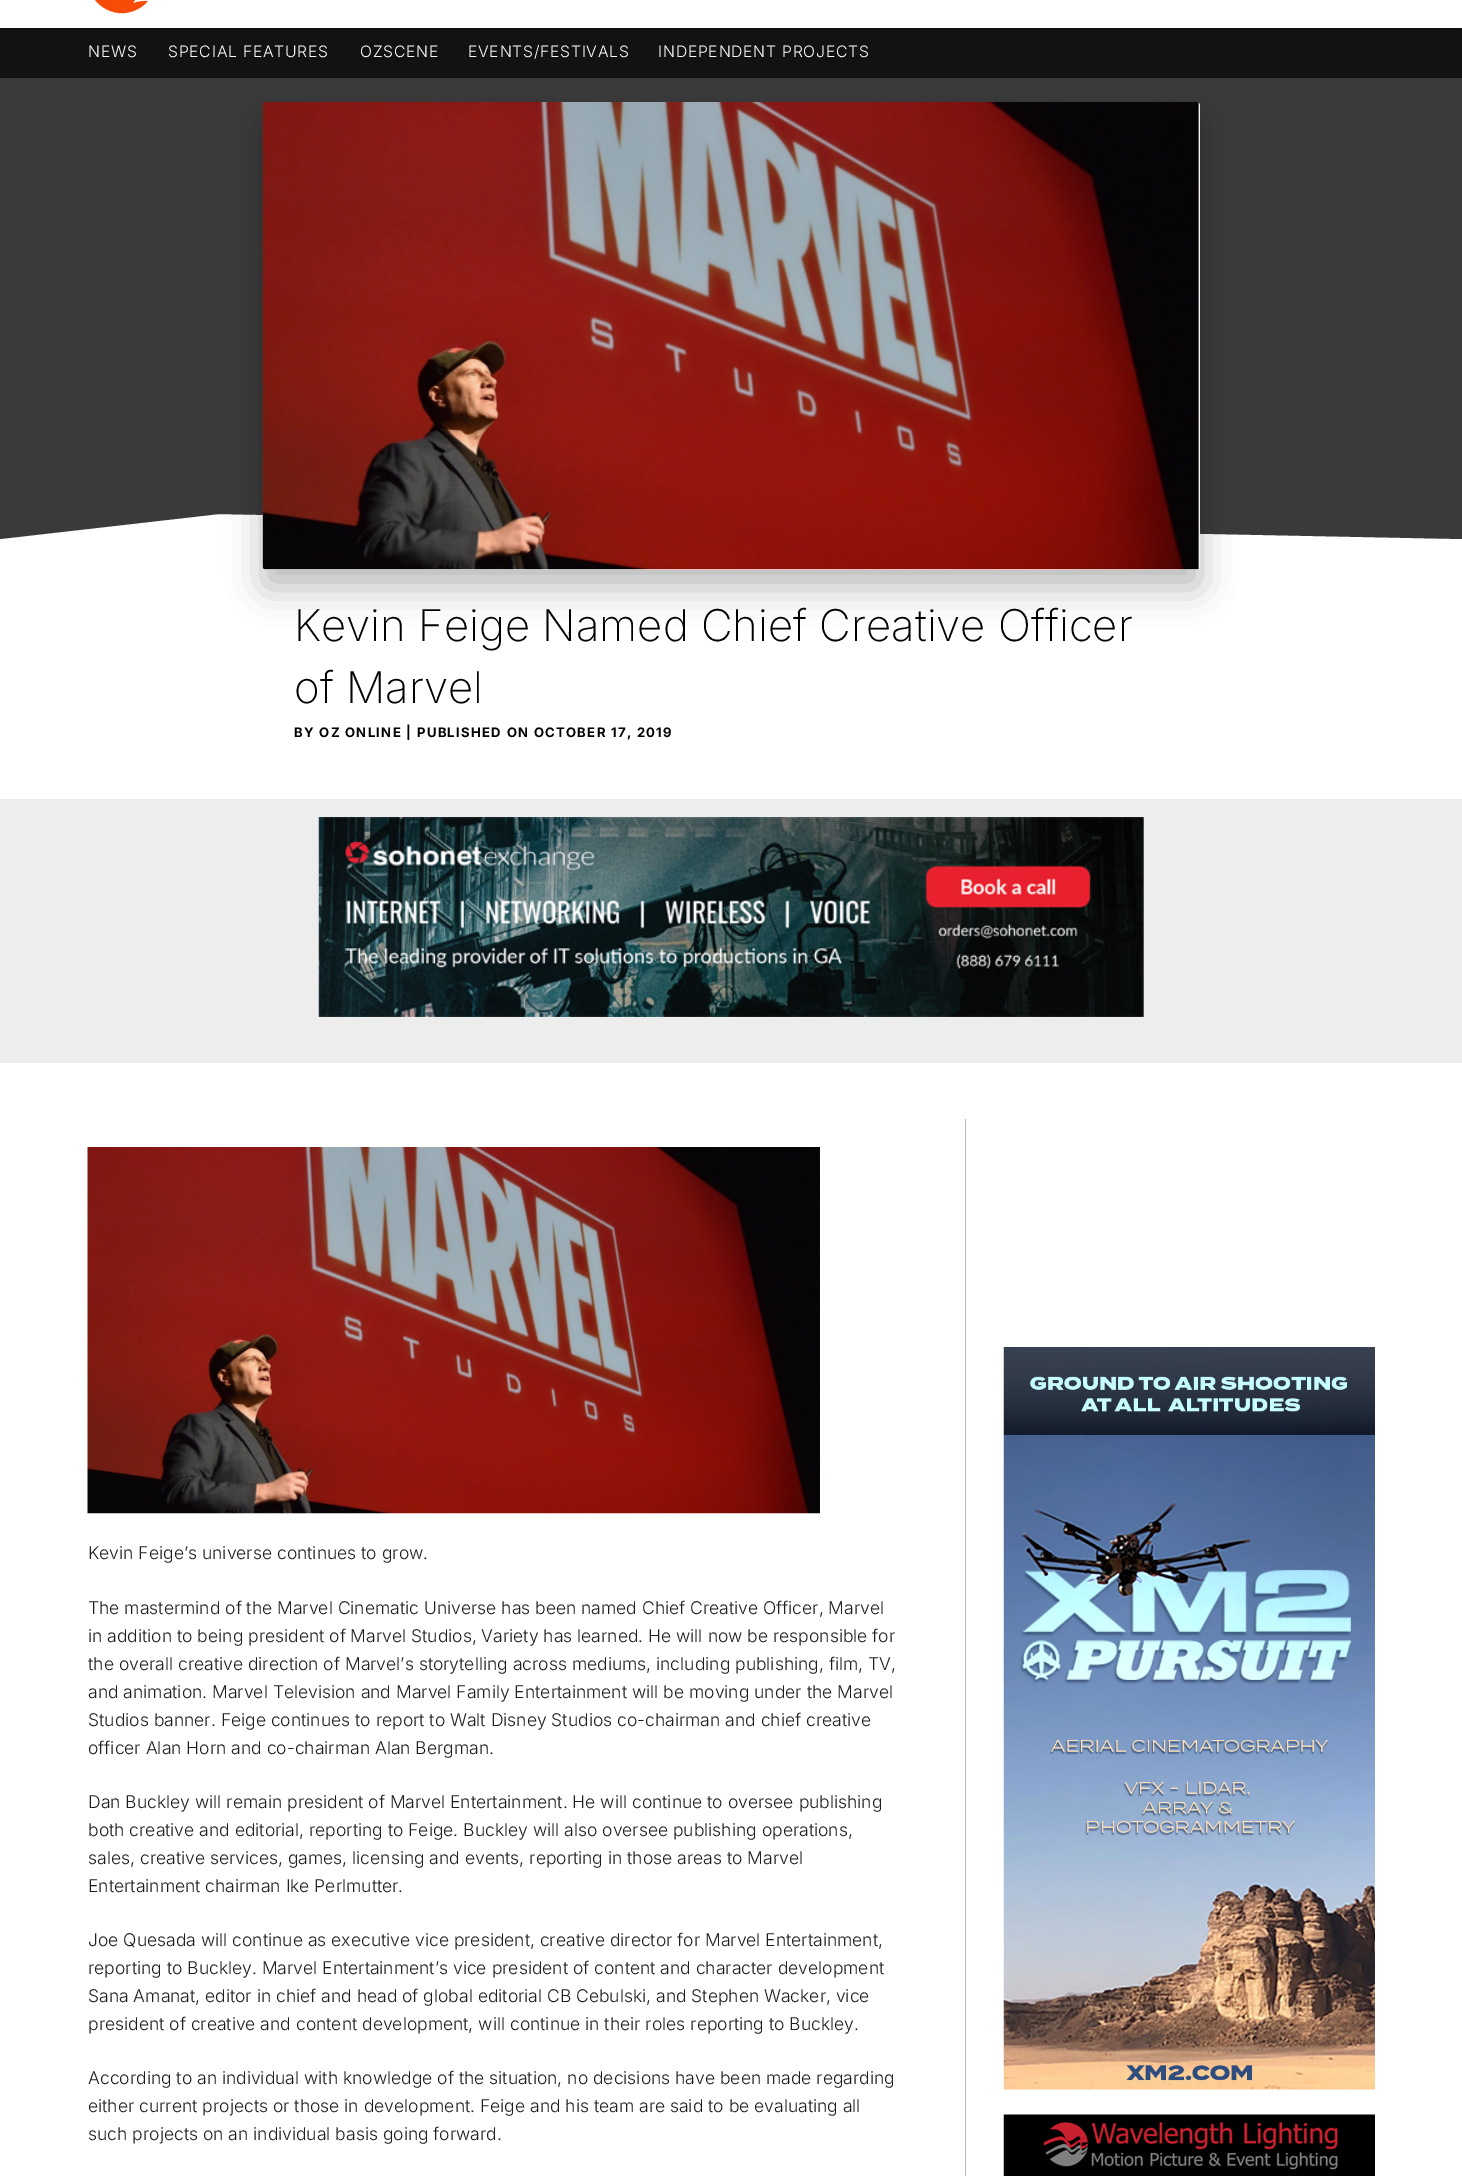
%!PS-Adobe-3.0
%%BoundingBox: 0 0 1462 2176
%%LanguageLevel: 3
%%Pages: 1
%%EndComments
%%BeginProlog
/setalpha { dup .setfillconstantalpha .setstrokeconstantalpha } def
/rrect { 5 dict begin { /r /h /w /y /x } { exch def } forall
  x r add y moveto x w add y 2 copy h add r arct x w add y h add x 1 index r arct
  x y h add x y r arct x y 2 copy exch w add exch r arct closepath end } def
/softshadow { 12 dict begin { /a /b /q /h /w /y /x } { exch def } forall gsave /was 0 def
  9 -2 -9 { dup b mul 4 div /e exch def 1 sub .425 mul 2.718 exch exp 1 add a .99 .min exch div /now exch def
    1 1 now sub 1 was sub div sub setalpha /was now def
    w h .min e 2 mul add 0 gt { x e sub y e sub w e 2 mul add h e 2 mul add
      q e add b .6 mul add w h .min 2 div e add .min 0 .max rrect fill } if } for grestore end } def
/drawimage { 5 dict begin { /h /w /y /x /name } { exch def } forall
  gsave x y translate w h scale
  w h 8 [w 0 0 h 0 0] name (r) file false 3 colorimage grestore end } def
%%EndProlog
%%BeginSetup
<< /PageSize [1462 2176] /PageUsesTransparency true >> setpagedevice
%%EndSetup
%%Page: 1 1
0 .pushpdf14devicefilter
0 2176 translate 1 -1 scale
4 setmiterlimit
1 setgray
0 0 1462 2176 rectfill
0.227 setgray
0 78 1462 436 rectfill
newpath 0 514 moveto 219 514 lineto 0 539 lineto closepath fill
newpath 219 514 moveto 1462 514 lineto 1462 539 lineto closepath fill
0 setgray
263 120 937 468 4 17.5 0.26 softshadow
0.071 setgray
0 28 1462 50 rectfill
0 setgray
0 -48 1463 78 0 16 0.15 softshadow
1 setgray
0 0 1462 28 rectfill
(images/1.raw) 94 0 55 14 drawimage
(images/2.raw) 262 102 938 468 drawimage
0.929 setgray
0 799 1462 264 rectfill
(images/3.raw) 318 817 826 200 drawimage
(images/4.raw) 87 1147 733 367 drawimage
0.733 setgray
965 1119 1 1057 rectfill
(images/5.raw) 1003 1347 372 743 drawimage
(images/6.raw) 1003 2114 372 62 drawimage
gsave
88 29 48 46 23 rrect clip newpath
/Inter-Light [15.75 0 0 -15.75 0 0] selectfont
1 setgray
88 57 moveto 0.75 0 (NEWS) ashow
grestore
/Inter-Light [15.75 0 0 -15.75 0 0] selectfont
1 setgray
168 57 moveto 0.75 0 (SPECIAL FEATURES) ashow
360 57 moveto 0.75 0 (OZSCENE) ashow
468 57 moveto 0.75 0 (EVENTS/FESTIVALS) ashow
658 57 moveto 0.75 0 (INDEPENDENT PROJECTS) ashow
/Inter-ExtraLight [43.75 0 0 -43.75 0 0] selectfont
0 setgray
294 641 moveto (Kevin Feige Named Chief Creative Officer) show
294 703 moveto (of Marvel) show
/Inter-Bold [13.1 0 0 -13.1 0 0] selectfont
294 737 moveto 1.3 0 (BY OZ ONLINE | PUBLISHED ON OCTOBER 17, 2019) ashow
/Inter-Light [17.5 0 0 -17.5 0 0] selectfont
0.118 setgray
88 1559 moveto (Kevin Feige’s universe continues to grow.) show
88 1614 moveto (The mastermind of the Marvel Cinematic Universe has been named Chief Creative Officer, Marvel) show
88 1642 moveto (in addition to being president of Marvel Studios, Variety has learned. He will now be responsible for) show
88 1670 moveto (the overall creative direction of Marvel’s storytelling across mediums, including publishing, film, TV,) show
88 1698 moveto (and animation. Marvel Television and Marvel Family Entertainment will be moving under the Marvel) show
88 1726 moveto (Studios banner. Feige continues to report to Walt Disney Studios co-chairman and chief creative) show
88 1754 moveto (officer Alan Horn and co-chairman Alan Bergman.) show
88 1808 moveto (Dan Buckley will remain president of Marvel Entertainment. He will continue to oversee publishing) show
88 1836 moveto (both creative and editorial, reporting to Feige. Buckley will also oversee publishing operations,) show
88 1864 moveto (sales, creative services, games, licensing and events, reporting in those areas to Marvel) show
88 1892 moveto (Entertainment chairman Ike Perlmutter.) show
88 1946 moveto (Joe Quesada will continue as executive vice president, creative director for Marvel Entertainment,) show
88 1974 moveto (reporting to Buckley. Marvel Entertainment’s vice president of content and character development) show
88 2002 moveto (Sana Amanat, editor in chief and head of global editorial CB Cebulski, and Stephen Wacker, vice) show
88 2030 moveto (president of creative and content development, will continue in their roles reporting to Buckley.) show
88 2084 moveto (According to an individual with knowledge of the situation, no decisions have been made regarding) show
88 2112 moveto (either current projects or those in development. Feige and his team are said to be evaluating all) show
88 2140 moveto (such projects on an individual basis going forward.) show
.poppdf14devicefilter showpage
%%EOF
